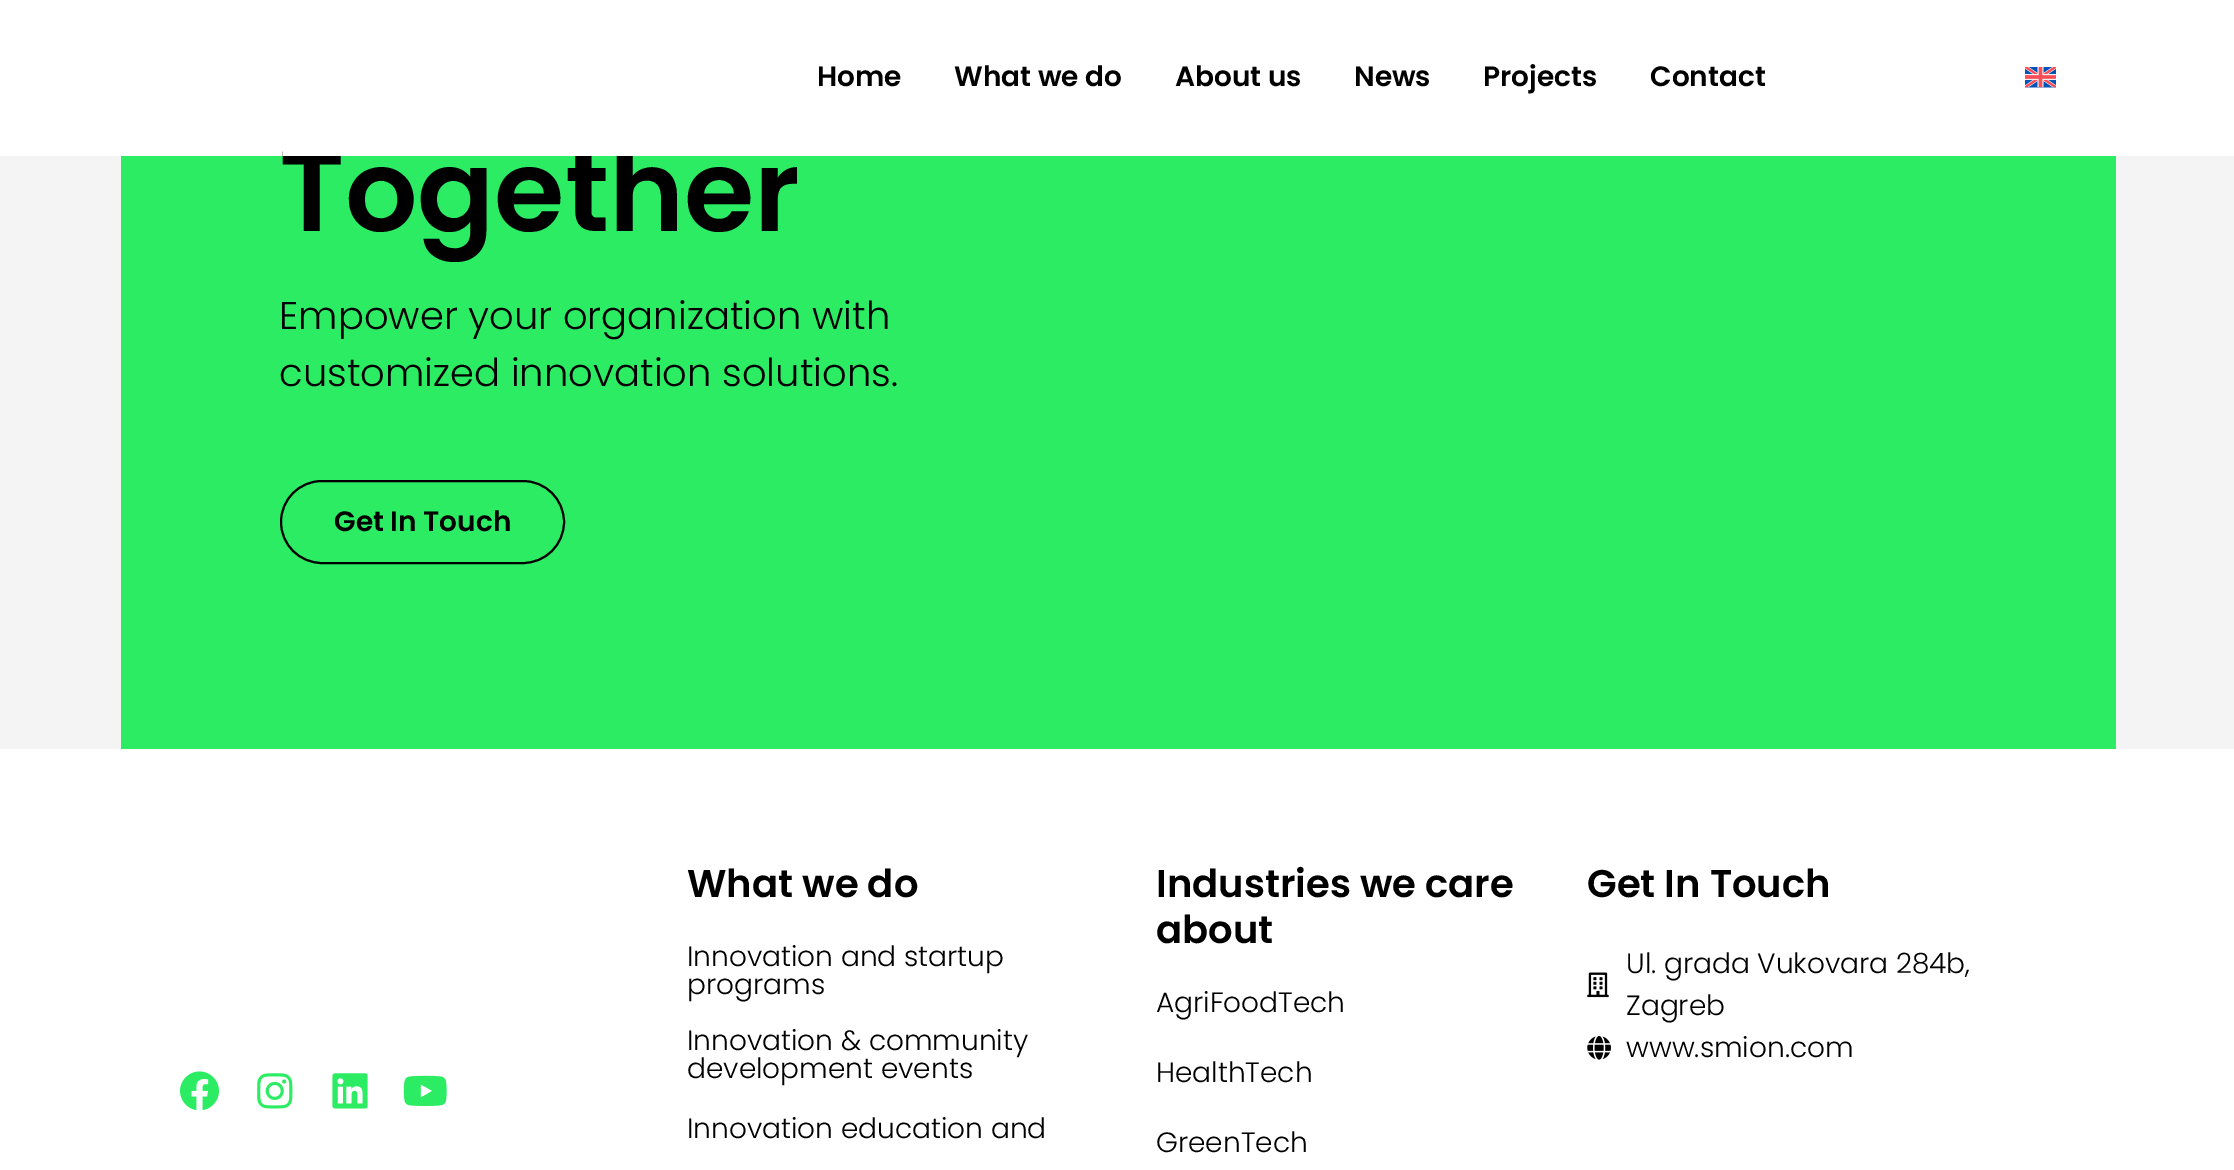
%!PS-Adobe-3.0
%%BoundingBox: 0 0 2234 1170
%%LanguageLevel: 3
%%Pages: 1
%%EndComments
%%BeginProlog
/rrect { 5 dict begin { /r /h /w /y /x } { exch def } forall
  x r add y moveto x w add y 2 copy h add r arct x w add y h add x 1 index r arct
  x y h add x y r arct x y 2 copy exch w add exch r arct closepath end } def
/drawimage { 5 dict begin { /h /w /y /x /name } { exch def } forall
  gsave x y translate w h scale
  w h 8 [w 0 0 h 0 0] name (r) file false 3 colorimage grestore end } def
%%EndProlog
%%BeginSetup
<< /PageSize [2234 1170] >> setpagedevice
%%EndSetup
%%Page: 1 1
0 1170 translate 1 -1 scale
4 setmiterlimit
1 setgray
0 0 2234 1170 rectfill
(images/1.raw) 2025 67 31 21 drawimage
0.957 setgray
0 156 2234 593 rectfill
0.169 0.925 0.384 setrgbcolor
121 156 1995 593 rectfill
0 setgray
2 setlinewidth
281 481 283 82 41 rrect stroke
(images/2.raw) 1587 972 22 26 drawimage
(images/3.raw) 1587 1036 24 24 drawimage
(images/4.raw) 180 1071 39 40 drawimage
(images/5.raw) 257 1073 36 36 drawimage
(images/6.raw) 332 1073 36 36 drawimage
(images/7.raw) 403 1075 44 31 drawimage
/Poppins-SemiBold [28 0 0 -28 0 0] selectfont
817 86 moveto (Home) show
954 86 moveto (What we do) show
1175 86 moveto (About us) show
1354 86 moveto (News) show
1483 86 moveto (Projects) show
1650 86 moveto (Contact) show
/Poppins-SemiBold [113.75 0 0 -113.75 0 0] selectfont
279 231 moveto (Together) show
1 setgray
283 146 350 10 rectfill
/Poppins-Light [38.5 0 0 -38.5 0 0] selectfont
0 setgray
279 329 moveto (Empower your organization with) show
279 386 moveto (customized innovation solutions.) show
/Poppins-SemiBold [28 0 0 -28 0 0] selectfont
334 531 moveto (Get In Touch) show
/Poppins-SemiBold [38.5 0 0 -38.5 0 0] selectfont
687 897 moveto (What we do) show
/Poppins-Light [28 0 0 -28 0 0] selectfont
687 966 moveto (Innovation and startup) show
687 994 moveto (programs) show
687 1050 moveto (Innovation & community) show
687 1078 moveto (development events) show
687 1138 moveto (Innovation education and) show
/Poppins-SemiBold [38.5 0 0 -38.5 0 0] selectfont
1156 897 moveto (Industries we care) show
1156 943 moveto (about) show
/Poppins-Light [28 0 0 -28 0 0] selectfont
1156 1012 moveto (AgriFoodTech) show
1156 1082 moveto (HealthTech) show
1156 1152 moveto (GreenTech) show
/Poppins-SemiBold [38.5 0 0 -38.5 0 0] selectfont
1587 897 moveto (Get In Touch) show
/Poppins-Light [28 0 0 -28 0 0] selectfont
1626 973 moveto (Ul. grada Vukovara 284b,) show
1626 1015 moveto (Zagreb) show
1626 1057 moveto (www.smion.com) show
showpage
%%EOF
